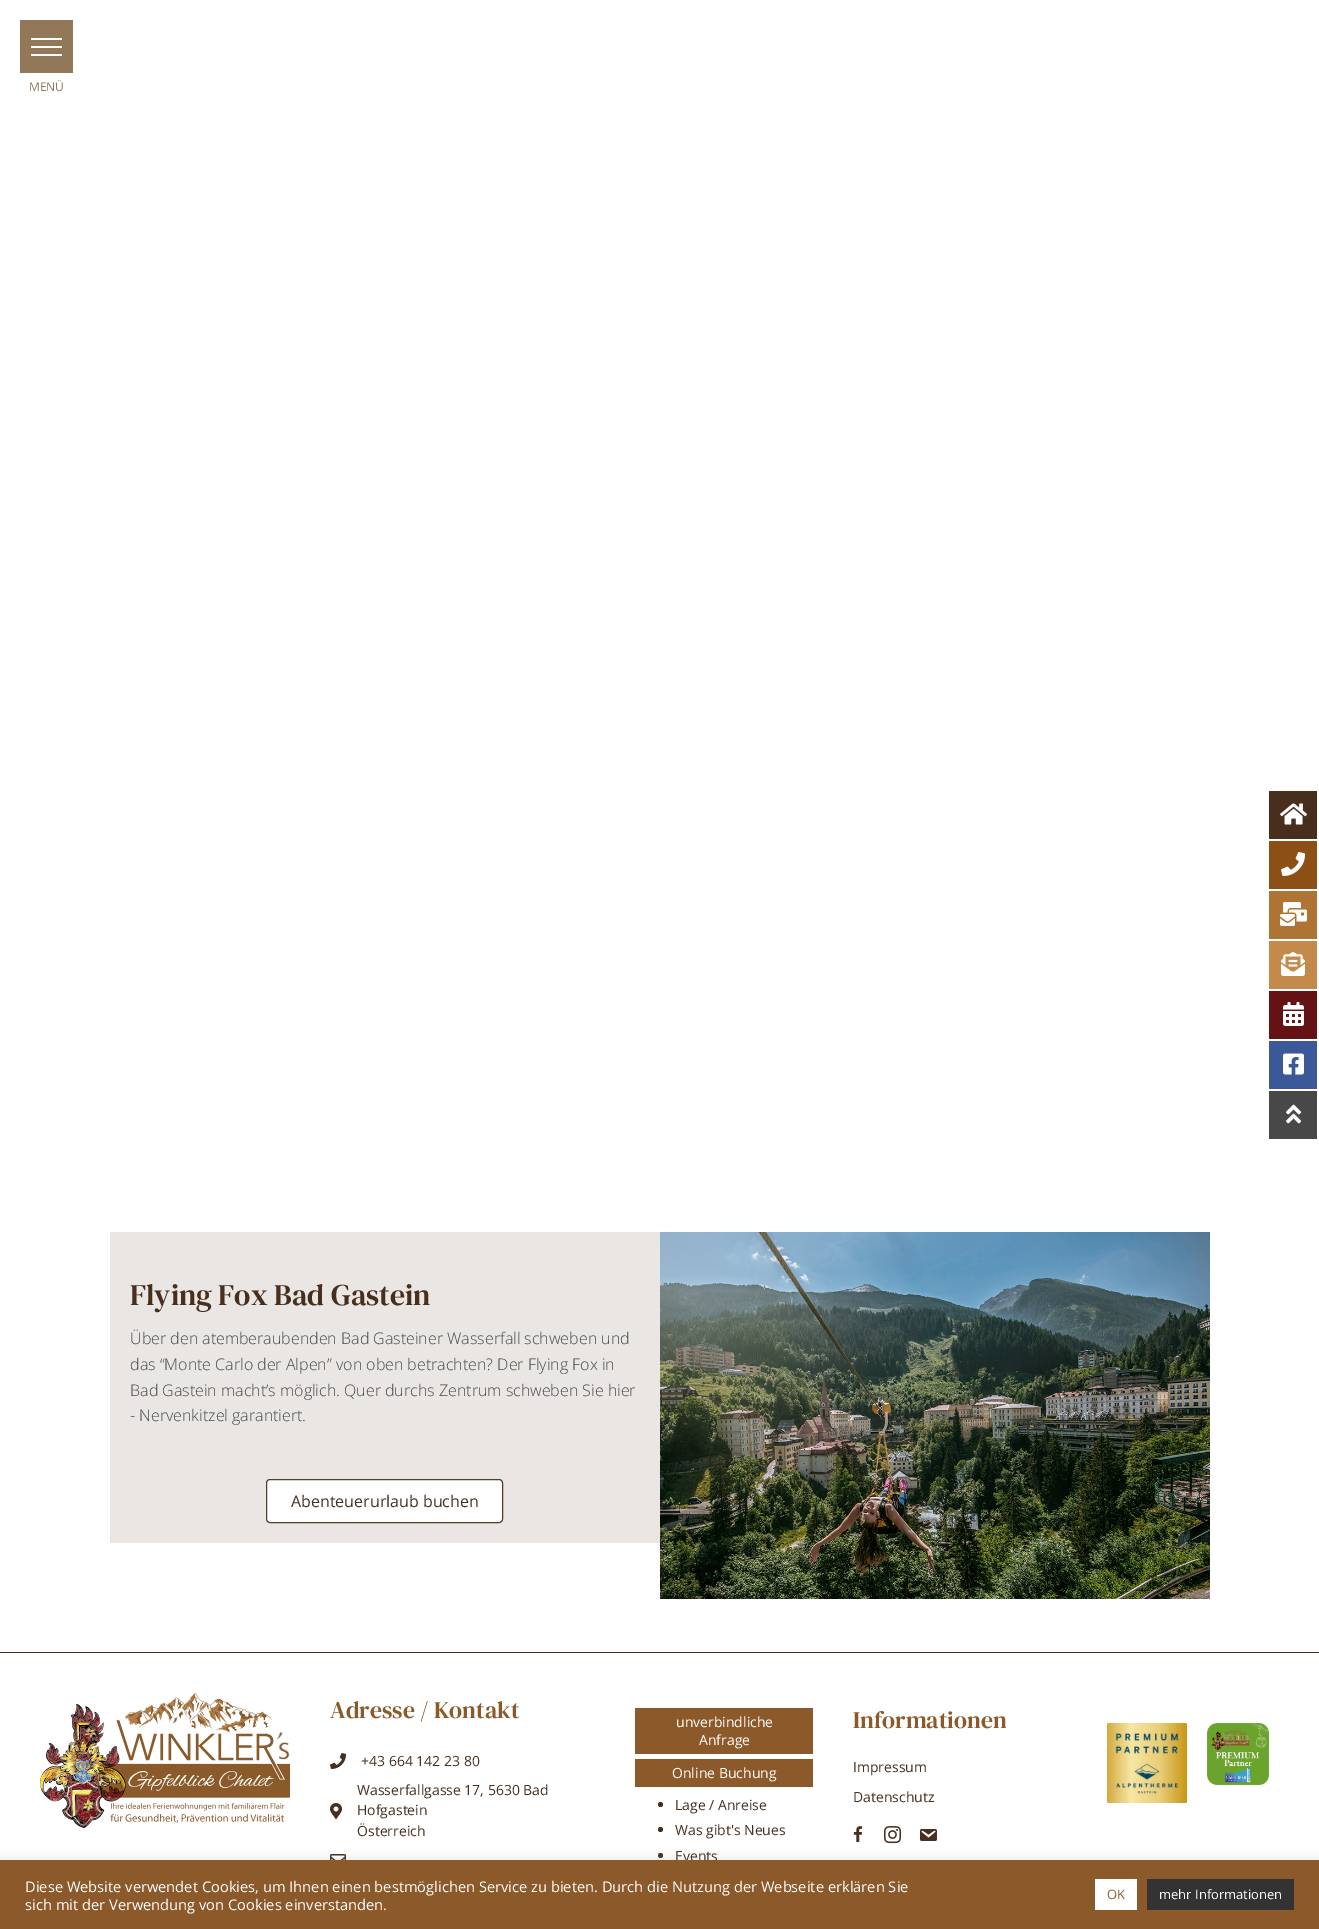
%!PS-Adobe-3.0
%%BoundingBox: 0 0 1319 1929
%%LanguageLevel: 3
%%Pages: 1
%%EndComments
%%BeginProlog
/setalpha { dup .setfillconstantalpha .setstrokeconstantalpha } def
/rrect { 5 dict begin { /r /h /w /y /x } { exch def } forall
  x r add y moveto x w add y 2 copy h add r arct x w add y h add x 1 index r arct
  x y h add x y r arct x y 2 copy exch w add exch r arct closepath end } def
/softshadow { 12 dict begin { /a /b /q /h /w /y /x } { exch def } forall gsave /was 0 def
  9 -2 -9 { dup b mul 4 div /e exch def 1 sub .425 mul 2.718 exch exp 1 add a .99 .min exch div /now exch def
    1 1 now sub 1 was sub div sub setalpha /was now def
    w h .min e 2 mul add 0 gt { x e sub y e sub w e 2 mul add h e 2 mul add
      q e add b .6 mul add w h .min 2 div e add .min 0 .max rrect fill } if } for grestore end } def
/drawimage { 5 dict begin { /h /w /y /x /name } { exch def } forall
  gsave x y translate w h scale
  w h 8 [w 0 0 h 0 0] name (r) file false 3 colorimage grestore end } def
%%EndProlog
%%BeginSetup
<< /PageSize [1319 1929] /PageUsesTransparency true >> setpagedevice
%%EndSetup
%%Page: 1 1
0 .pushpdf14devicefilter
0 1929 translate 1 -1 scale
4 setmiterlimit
1 setgray
0 0 1319 1929 rectfill
0.573 0.467 0.345 setrgbcolor
20 20 53 53 rectfill
1 setgray
31 46 31 2 rectfill
31 38 31 2 rectfill
31 54 31 2 rectfill
0.278 0.18 0.114 setrgbcolor
1269 791 48 48 rectfill
(images/1.raw) 1280 803 27 22 drawimage
0.549 0.314 0.09 setrgbcolor
1269 841 48 48 rectfill
(images/2.raw) 1281 852 25 24 drawimage
0.686 0.451 0.2 setrgbcolor
1269 891 48 48 rectfill
(images/3.raw) 1280 902 27 24 drawimage
0.769 0.541 0.298 setrgbcolor
1269 941 48 48 rectfill
(images/4.raw) 1281 952 24 24 drawimage
0.396 0.071 0.078 setrgbcolor
1269 991 48 48 rectfill
(images/5.raw) 1283 1002 21 24 drawimage
0.231 0.349 0.596 setrgbcolor
1269 1041 48 48 rectfill
(images/6.raw) 1283 1053 21 22 drawimage
0.282 setgray
1269 1091 48 48 rectfill
(images/7.raw) 1286 1104 15 20 drawimage
0.914 0.902 0.894 setrgbcolor
110 1232 550 311 rectfill
1 setgray
266.5 1479.5 236 43 3.5 rrect gsave fill grestore
0.31 0.243 0.165 setrgbcolor
stroke
(images/8.raw) 660 1232 550 367 drawimage
0.278 0.18 0.114 setrgbcolor
0 1652 1319 1 rectfill
(images/9.raw) 40 1693 250 135 drawimage
(images/10.raw) 330 1753 16 16 drawimage
(images/11.raw) 330 1803 12 16 drawimage
(images/12.raw) 330 1854 16 6 drawimage
0.545 0.349 0.165 setrgbcolor
635 1708 178 46 rectfill
635 1759 178 28 rectfill
0.278 0.18 0.114 setrgbcolor
newpath 660.5 1804.5 2.5 0 360 arc closepath fill
newpath 660.5 1829.5 2.5 0 360 arc closepath fill
newpath 660.5 1855.5 2.5 0 360 arc closepath fill
(images/13.raw) 853 1826 10 16 drawimage
(images/14.raw) 884 1826 17 18 drawimage
(images/15.raw) 920 1829 17 12 drawimage
(images/16.raw) 1107 1723 80 80 drawimage
(images/17.raw) 1207 1723 62 62 drawimage
0.675 0.671 0.671 setrgbcolor
0 1859 1319 69 0 5 0.3 softshadow
/OpenSans-Regular [12 0 0 -12 0 0] selectfont
0.573 0.467 0.345 setrgbcolor
29 91 moveto (MENÜ) show
/DMSerifText-Regular [30 0 0 -30 0 0] selectfont
0.278 0.18 0.114 setrgbcolor
130 1305 moveto (Flying Fox Bad Gastein) show
/OpenSans-Light [16 0 0 -16 0 0] selectfont
0.282 setgray
130 1344 moveto (Über den atemberaubenden Bad Gasteiner Wasserfall schweben und) show
130 1370 moveto (das “Monte Carlo der Alpen” von oben betrachten? Der Flying Fox in) show
130 1396 moveto (Bad Gastein macht’s möglich. Quer durchs Zentrum schweben Sie hier) show
130 1421 moveto (- Nervenkitzel garantiert.) show
/OpenSans-Regular [16 0 0 -16 0 0] selectfont
0.278 0.18 0.114 setrgbcolor
291 1507 moveto (Abenteuerurlaub buchen) show
/DMSerifText-Regular [24 0 0 -24 0 0] selectfont
0.545 0.349 0.165 setrgbcolor
330 1718 moveto (Adresse / Kontakt) show
/OpenSans-Regular [14 0 0 -14 0 0] selectfont
0.278 0.18 0.114 setrgbcolor
361 1766 moveto (+43 664 142 23 80) show
357 1795 moveto (Wasserfallgasse 17, 5630 Bad) show
357 1815 moveto (Hofgastein) show
357 1836 moveto (Österreich) show
1 setgray
676 1727 moveto (unverbindliche) show
699 1745 moveto (Anfrage) show
672 1778 moveto (Online Buchung) show
0.278 0.18 0.114 setrgbcolor
675 1810 moveto (Lage / Anreise) show
675 1835 moveto (Was gibt's Neues) show
675 1861 moveto (Events) show
/DMSerifText-Regular [24 0 0 -24 0 0] selectfont
0.545 0.349 0.165 setrgbcolor
853 1728 moveto (Informationen) show
/OpenSans-Regular [14 0 0 -14 0 0] selectfont
0.278 0.18 0.114 setrgbcolor
853 1772 moveto (Impressum) show
853 1802 moveto (Datenschutz) show
0.545 0.349 0.165 setrgbcolor
0 1860 1319 69 rectfill
/OpenSans-Regular [14.67 0 0 -14.67 0 0] selectfont
1 setgray
25 1892 moveto (Diese Website verwendet Cookies, um Ihnen einen bestmöglichen Service zu bieten. Durch die Nutzung der Webseite erklären Sie) show
25 1910 moveto (sich mit der Verwendung von Cookies einverstanden.) show
1095 1879 42 31 rectfill
/OpenSans-Regular [13 0 0 -13 0 0] selectfont
0.545 0.349 0.165 setrgbcolor
1107 1899 moveto (OK) show
0.2 setgray
1147 1879 147 31 rectfill
1 setgray
1159 1899 moveto (mehr Informationen) show
.poppdf14devicefilter showpage
%%EOF
